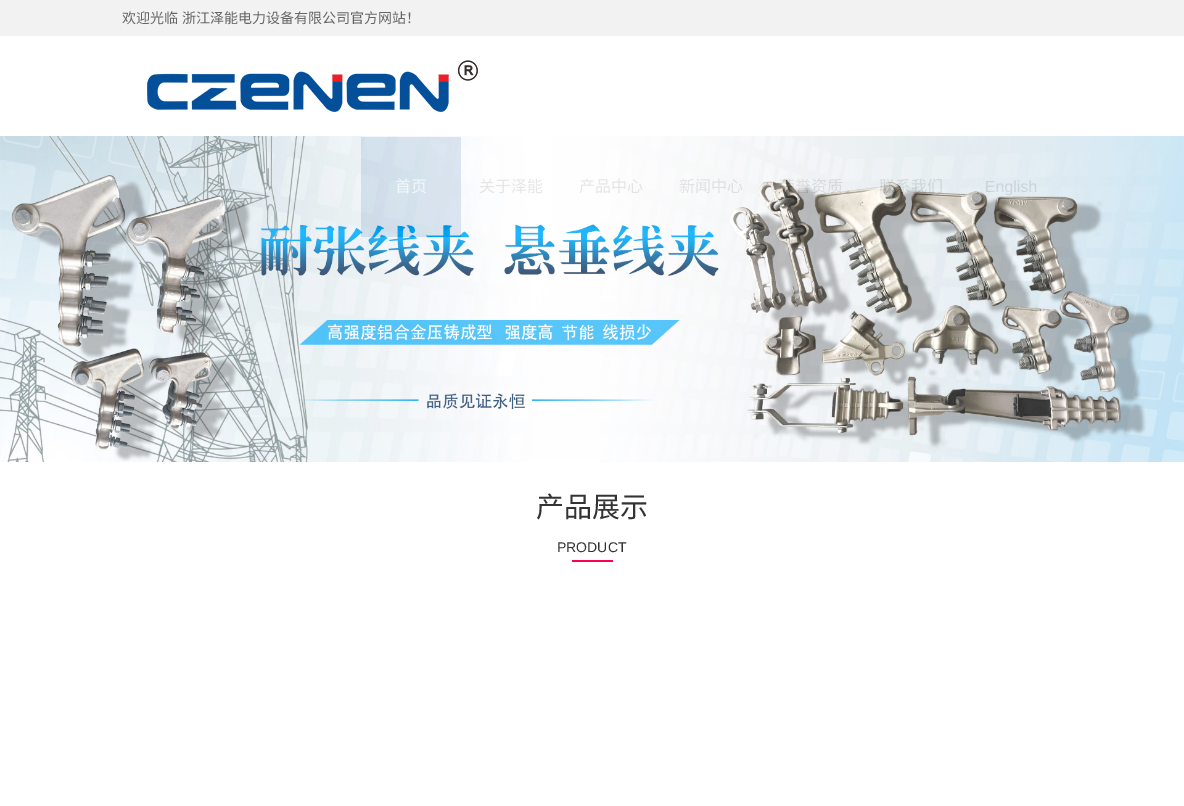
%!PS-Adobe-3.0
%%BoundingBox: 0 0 1184 806
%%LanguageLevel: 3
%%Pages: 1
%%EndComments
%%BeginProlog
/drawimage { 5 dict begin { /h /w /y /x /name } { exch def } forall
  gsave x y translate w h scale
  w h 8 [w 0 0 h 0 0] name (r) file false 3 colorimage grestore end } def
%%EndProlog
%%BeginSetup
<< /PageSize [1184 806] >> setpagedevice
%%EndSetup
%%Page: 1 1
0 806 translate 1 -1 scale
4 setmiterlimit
1 setgray
0 0 1184 806 rectfill
0.949 setgray
0 0 1184 36 rectfill
(images/1.raw) 147 60 331 52 drawimage
(images/2.raw) 0 136 1184 326 drawimage
0.988 0 0.325 setrgbcolor
572 560 41 2 rectfill
/NotoSansCJKSC-Regular [14 0 0 -14 0 0] selectfont
0.4 setgray
122 23 moveto 1 0 32 (欢迎光临 浙江泽能电力设备有限公司官方网站！) widthshow
/NotoSansCJKSC-Regular [28 0 0 -28 0 0] selectfont
0.2 setgray
536 517 moveto (产品展示) show
/LiberationSans-Regular [14 0 0 -14 0 0] selectfont
557 552 moveto (PRODUCT) show
showpage
%%EOF
